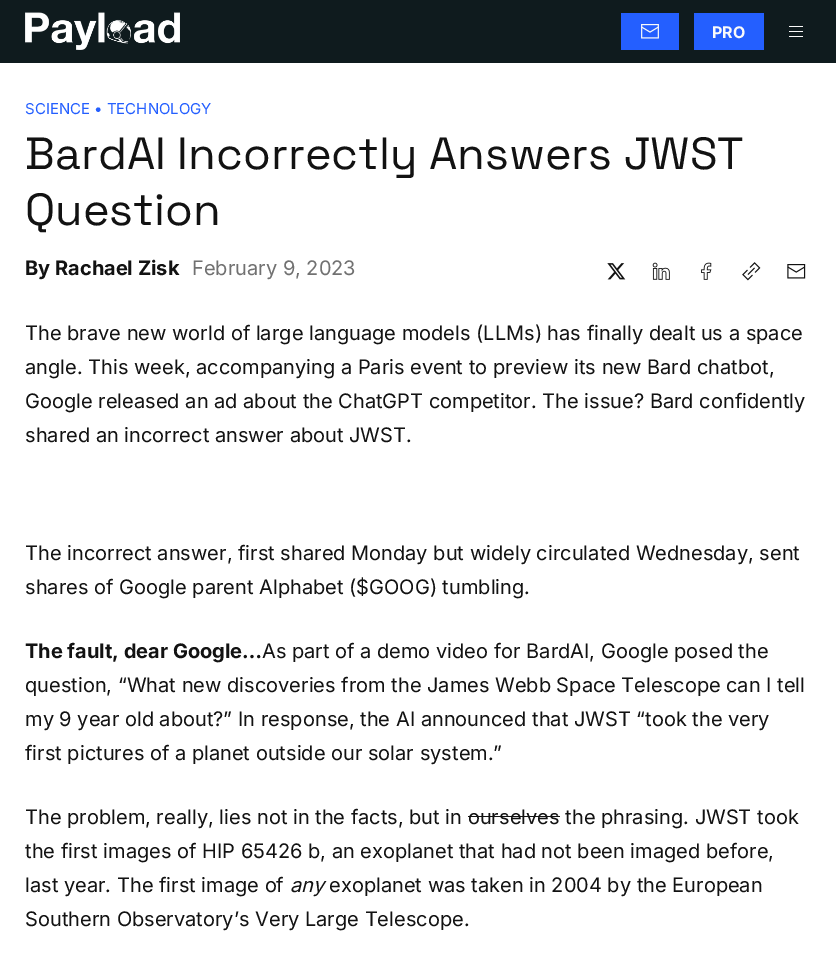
%!PS-Adobe-3.0
%%BoundingBox: 0 0 836 979
%%LanguageLevel: 3
%%Pages: 1
%%EndComments
%%BeginProlog
/drawimage { 5 dict begin { /h /w /y /x /name } { exch def } forall
  gsave x y translate w h scale
  w h 8 [w 0 0 h 0 0] name (r) file false 3 colorimage grestore end } def
%%EndProlog
%%BeginSetup
<< /PageSize [836 979] >> setpagedevice
%%EndSetup
%%Page: 1 1
0 979 translate 1 -1 scale
4 setmiterlimit
1 setgray
0 0 836 979 rectfill
0.059 0.106 0.118 setrgbcolor
0 0 836 63 rectfill
(images/1.raw) 25 12 155 38 drawimage
0.141 0.373 1 setrgbcolor
621 13 58 37 rectfill
(images/2.raw) 641 24 18 15 drawimage
694 13 70 37 rectfill
0.98 setgray
789 31 14 1 rectfill
789 26 14 1 rectfill
789 36 14 1 rectfill
(images/3.raw) 607 263 19 17 drawimage
(images/4.raw) 652 262 18 18 drawimage
(images/5.raw) 701 262 11 18 drawimage
(images/6.raw) 742 262 19 19 drawimage
(images/7.raw) 787 264 19 15 drawimage
0.071 setgray
468 816 92 1 rectfill
/Inter-Bold [16 0 0 -16 0 0] selectfont
0.98 setgray
712 38 moveto (PRO) show
/Inter-Regular [15 0 0 -15 0 0] selectfont
0.141 0.373 1 setrgbcolor
25 114 moveto (SCIENCE • TECHNOLOGY) show
/SpaceGrotesk-Light [45 0 0 -45 0 0] selectfont
0.071 setgray
25 169 moveto (BardAI Incorrectly Answers JWST) show
25 225 moveto (Question) show
/Inter-Bold [20 0 0 -20 0 0] selectfont
25 275 moveto (By Rachael Zisk) show
/Inter-Regular [20 0 0 -20 0 0] selectfont
0.443 setgray
192 275 moveto (February 9, 2023) show
0.071 setgray
25 340 moveto (The brave new world of large language models \(LLMs\) has finally dealt us a space) show
25 374 moveto (angle. This week, accompanying a Paris event to preview its new Bard chatbot,) show
25 408 moveto (Google released an ad about the ChatGPT competitor. The issue? Bard confidently) show
25 442 moveto (shared an incorrect answer about JWST.) show
25 560 moveto (The incorrect answer, first shared Monday but widely circulated Wednesday, sent) show
25 594 moveto (shares of Google parent Alphabet \($GOOG\) tumbling.) show
/Inter-Bold [20 0 0 -20 0 0] selectfont
25 658 moveto (The fault, dear Google…) show
/Inter-Regular [20 0 0 -20 0 0] selectfont
262 658 moveto (As part of a demo video for BardAI, Google posed the) show
25 692 moveto (question, “What new discoveries from the James Webb Space Telescope can I tell) show
25 726 moveto (my 9 year old about?” In response, the AI announced that JWST “took the very) show
25 760 moveto (first pictures of a planet outside our solar system.”) show
25 824 moveto (The problem, really, lies not in the facts, but in ourselves the phrasing. JWST took) show
25 858 moveto (the first images of HIP 65426 b, an exoplanet that had not been imaged before,) show
25 892 moveto (last year. The first image of) show
/Inter-Italic [20 0 0 -20 0 0] selectfont
290 892 moveto (any) show
/Inter-Regular [20 0 0 -20 0 0] selectfont
329 892 moveto (exoplanet was taken in 2004 by the European) show
25 926 moveto (Southern Observatory’s Very Large Telescope.) show
showpage
%%EOF
